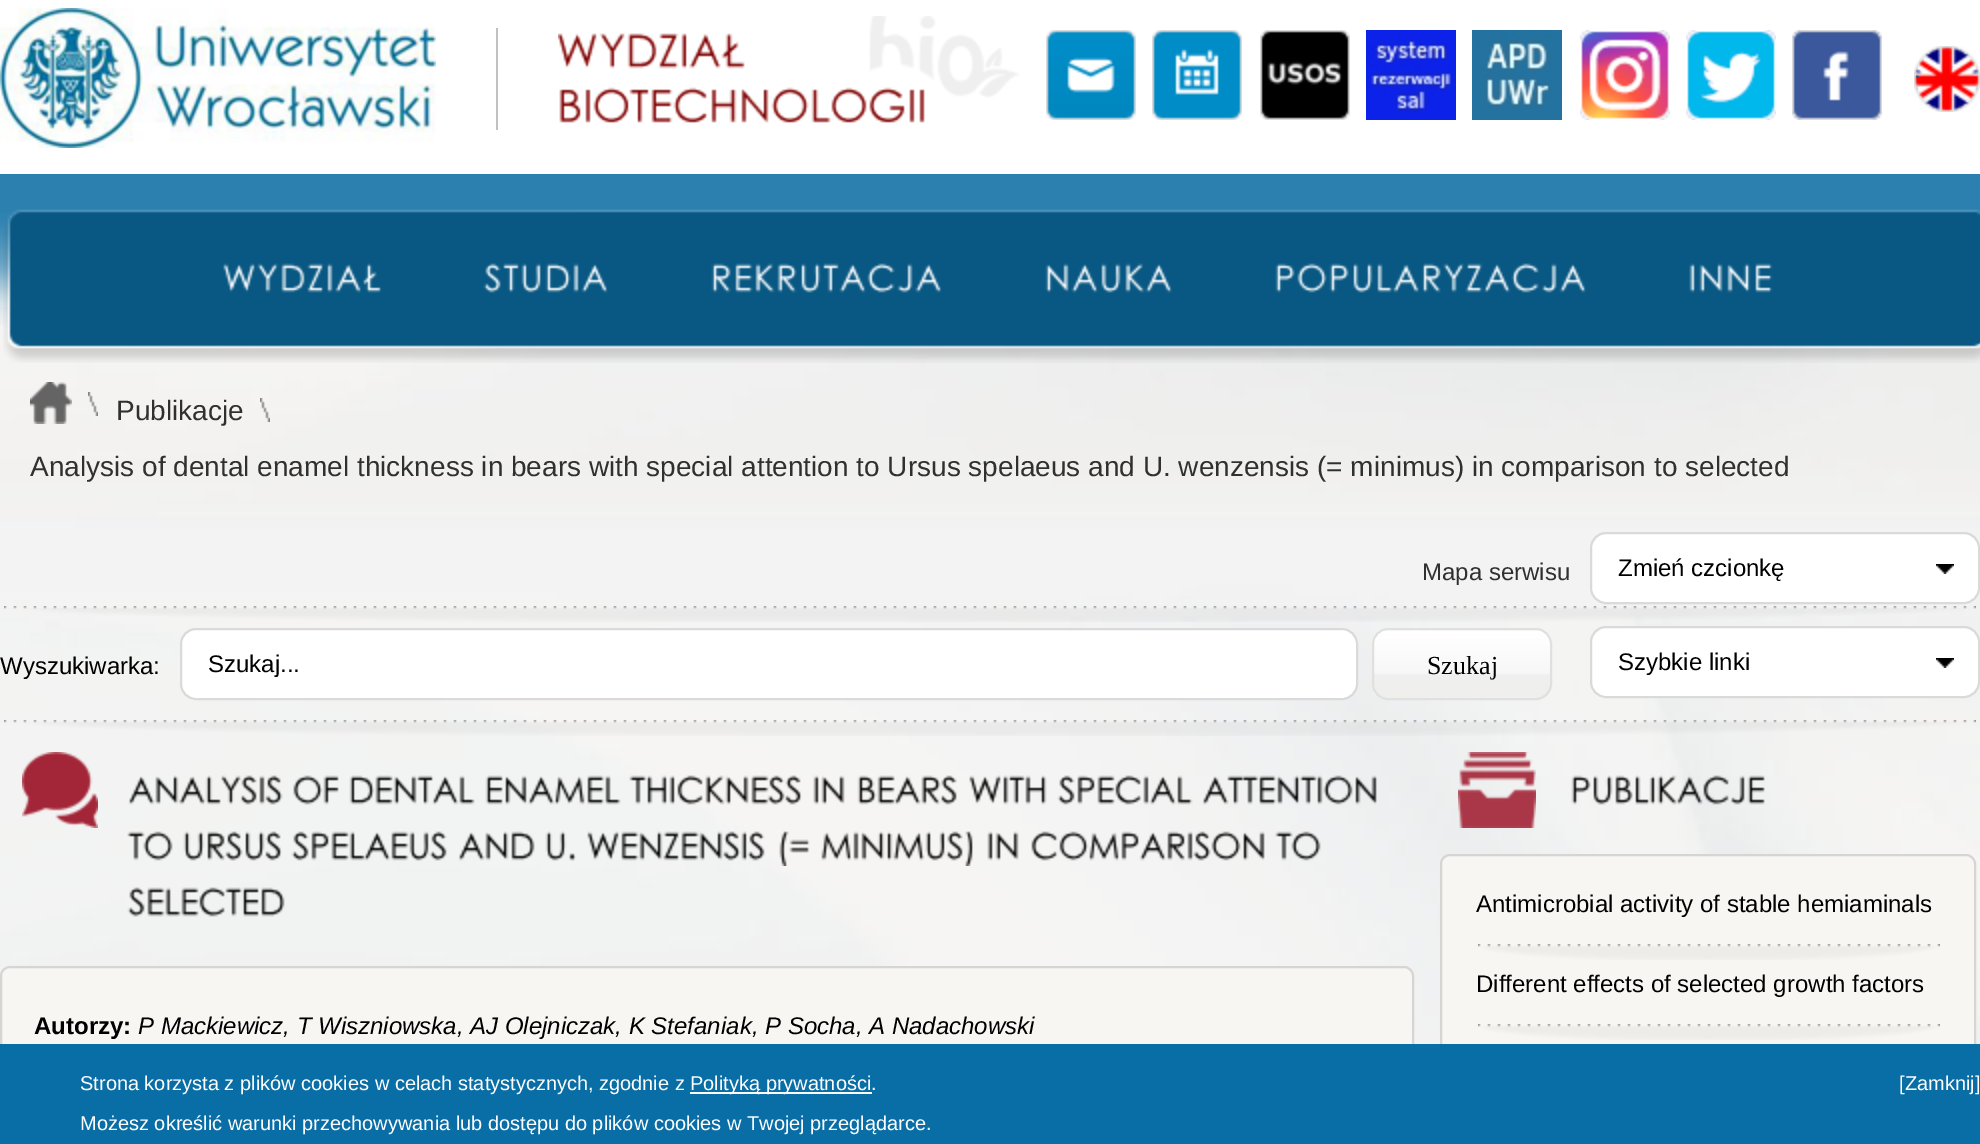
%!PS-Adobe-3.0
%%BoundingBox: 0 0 1980 1144
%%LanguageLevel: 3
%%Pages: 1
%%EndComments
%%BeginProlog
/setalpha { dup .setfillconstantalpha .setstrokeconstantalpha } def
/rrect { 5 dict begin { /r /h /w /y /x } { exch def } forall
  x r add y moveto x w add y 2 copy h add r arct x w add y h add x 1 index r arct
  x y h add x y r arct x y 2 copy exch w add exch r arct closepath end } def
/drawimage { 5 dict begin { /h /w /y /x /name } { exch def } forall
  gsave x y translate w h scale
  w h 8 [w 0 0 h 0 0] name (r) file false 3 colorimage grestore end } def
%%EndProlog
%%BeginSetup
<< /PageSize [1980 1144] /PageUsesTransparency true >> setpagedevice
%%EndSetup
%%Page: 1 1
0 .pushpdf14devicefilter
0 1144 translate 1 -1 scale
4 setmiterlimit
1 setgray
0 0 1980 1144 rectfill
(images/1.raw) 0 211 1980 833 drawimage
(images/2.raw) 869 16 150 82 drawimage
(images/3.raw) 0 8 436 140 drawimage
0.761 0.757 0.757 setrgbcolor
496 28 2 102 rectfill
(images/4.raw) 558 33 367 90 drawimage
(images/5.raw) 1046 30 90 90 drawimage
(images/6.raw) 1152 30 90 90 drawimage
(images/7.raw) 1260 30 90 90 drawimage
(images/8.raw) 1366 30 90 90 drawimage
(images/9.raw) 1472 30 90 90 drawimage
(images/10.raw) 1580 30 90 90 drawimage
(images/11.raw) 1686 30 90 90 drawimage
(images/12.raw) 1792 30 90 90 drawimage
(images/13.raw) 1914 46 66 66 drawimage
(images/14.raw) 0 174 1980 152 drawimage
0.08 setalpha
1 setgray
0 174 1980 133 rectfill
1 setalpha
(images/15.raw) 3 209 1977 154 drawimage
(images/16.raw) 223 263 158 30 drawimage
(images/17.raw) 483 263 125 30 drawimage
(images/18.raw) 711 263 230 30 drawimage
(images/19.raw) 1045 263 127 30 drawimage
(images/20.raw) 1275 263 311 30 drawimage
(images/21.raw) 1689 263 84 30 drawimage
(images/22.raw) 88 392 10 24 drawimage
(images/23.raw) 30 382 42 42 drawimage
(images/24.raw) 260 398 10 24 drawimage
1591 533 388 70 15 rrect gsave fill grestore
0.855 setgray
2 setlinewidth
stroke
(images/25.raw) 1936 564 18 10 drawimage
(images/26.raw) 4 606 1972 16 drawimage
1 setgray
181 629 1176 70 15 rrect gsave fill grestore
0.855 setgray
stroke
(images/27.raw) 1372 628 180 72 drawimage
0.878 0.878 0.875 setrgbcolor
1373 629 178 70 15 rrect stroke
1 setgray
1591 627 388 70 15 rrect gsave fill grestore
0.855 setgray
stroke
(images/25.raw) 1936 658 18 10 drawimage
(images/28.raw) 4 720 1972 16 drawimage
(images/29.raw) 1458 752 78 76 drawimage
(images/30.raw) 1571 775 194 30 drawimage
0.973 0.965 0.953 setrgbcolor
1441 855 534 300 9 rrect gsave fill grestore
0.839 0.835 0.827 setrgbcolor
stroke
(images/31.raw) 1478 944 462 16 drawimage
(images/31.raw) 1478 1024 462 16 drawimage
(images/32.raw) 22 752 76 76 drawimage
(images/33.raw) 128 775 155 30 drawimage
(images/34.raw) 293 775 46 30 drawimage
(images/35.raw) 349 775 126 30 drawimage
(images/36.raw) 485 775 136 30 drawimage
(images/37.raw) 629 775 173 30 drawimage
(images/38.raw) 813 775 32 30 drawimage
(images/39.raw) 857 775 100 30 drawimage
(images/40.raw) 969 775 78 30 drawimage
(images/41.raw) 1057 775 136 30 drawimage
(images/42.raw) 1202 775 175 30 drawimage
(images/43.raw) 127 831 46 30 drawimage
(images/44.raw) 183 831 99 30 drawimage
(images/45.raw) 291 831 156 30 drawimage
(images/46.raw) 458 831 77 30 drawimage
(images/47.raw) 545 831 31 30 drawimage
(images/48.raw) 587 831 178 30 drawimage
(images/49.raw) 779 831 31 35 drawimage
(images/50.raw) 821 831 152 35 drawimage
(images/51.raw) 987 831 32 30 drawimage
(images/52.raw) 1031 831 234 30 drawimage
(images/53.raw) 1275 831 46 30 drawimage
(images/54.raw) 127 887 158 30 drawimage
0.973 0.965 0.953 setrgbcolor
1 967 1412 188 9 rrect gsave fill grestore
0.839 0.835 0.827 setrgbcolor
stroke
0.035 0.431 0.647 setrgbcolor
0 1044 1980 100 rectfill
1 setgray
690 1092 182 2 rectfill
/LiberationSans-Regular [24 0 0 -24 0 0] selectfont
0 0.4 0.62 setrgbcolor
1914 78 moveto (.) show
/LiberationSans-Regular [28 0 0 -28 0 0] selectfont
0.188 setgray
116 420 moveto (Publikacje) show
30 476 moveto (Analysis of dental enamel thickness in bears with special attention to Ursus spelaeus and U. wenzensis \(= minimus\) in comparison to selected) show
/LiberationSans-Regular [24 0 0 -24 0 0] selectfont
1422 580 moveto (Mapa serwisu) show
0 setgray
1618 576 moveto (Zmień czcionkę) show
0 674 moveto (Wyszukiwarka:) show
208 672 moveto (Szukaj...) show
/LiberationSerif-Regular [26 0 0 -26 0 0] selectfont
1427 674 moveto (Szukaj) show
/LiberationSans-Regular [24 0 0 -24 0 0] selectfont
1618 670 moveto (Szybkie linki) show
1476 912 moveto (Antimicrobial activity of stable hemiaminals) show
1476 992 moveto (Different effects of selected growth factors) show
/LiberationSans-Bold [24 0 0 -24 0 0] selectfont
34 1034 moveto (Autorzy:) show
/LiberationSans-Italic [24 0 0 -24 0 0] selectfont
138 1034 moveto (P Mackiewicz, T Wiszniowska, AJ Olejniczak, K Stefaniak, P Socha, A Nadachowski) show
/LiberationSans-Regular [20 0 0 -20 0 0] selectfont
1 setgray
80 1090 moveto (Strona korzysta z plików cookies w celach statystycznych, zgodnie z) show
690 1090 moveto (Polityką prywatności.) show
80 1130 moveto (Możesz określić warunki przechowywania lub dostępu do plików cookies w Twojej przeglądarce.) show
1899 1090 moveto ([Zamknij]) show
.poppdf14devicefilter showpage
%%EOF
